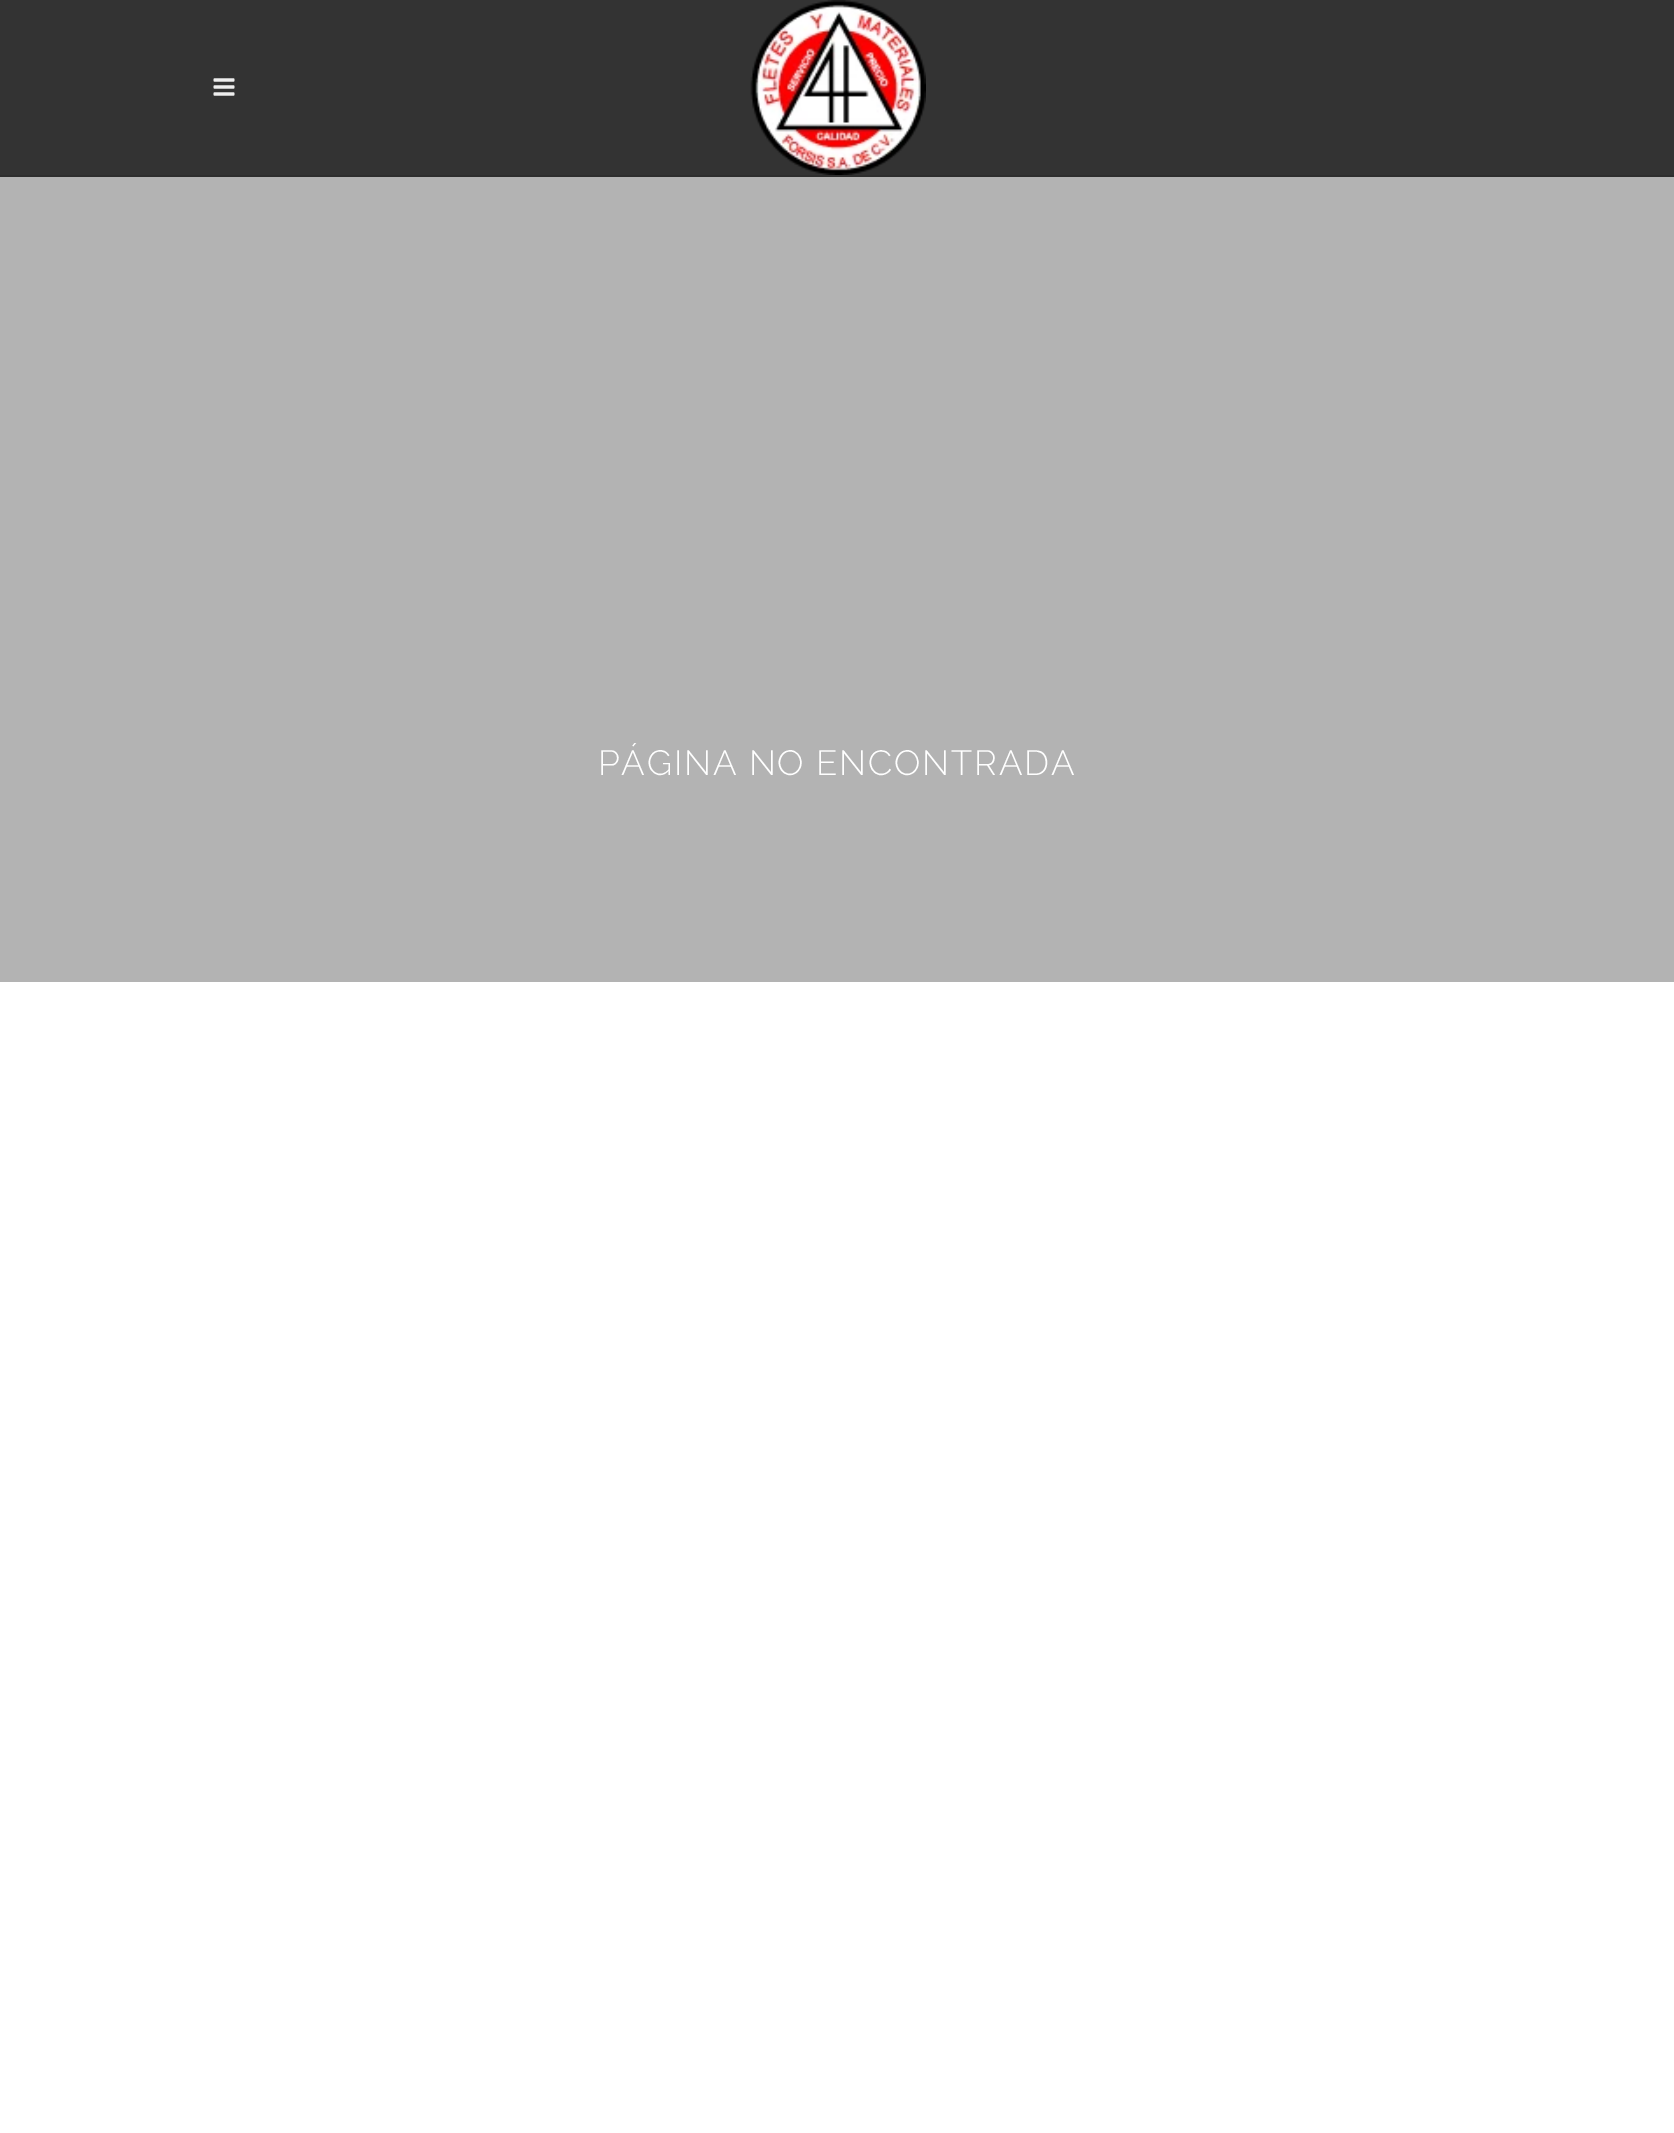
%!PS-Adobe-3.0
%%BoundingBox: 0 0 1674 2133
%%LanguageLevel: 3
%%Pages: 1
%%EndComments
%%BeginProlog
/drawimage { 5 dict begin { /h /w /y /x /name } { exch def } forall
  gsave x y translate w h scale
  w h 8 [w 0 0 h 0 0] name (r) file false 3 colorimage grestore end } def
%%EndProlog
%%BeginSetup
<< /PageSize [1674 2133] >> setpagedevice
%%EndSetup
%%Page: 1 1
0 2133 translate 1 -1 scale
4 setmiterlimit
1 setgray
0 0 1674 2133 rectfill
0.2 setgray
0 0 1674 175 rectfill
0.18 setgray
0 175 1674 2 rectfill
(images/1.raw) 213 78 22 18 drawimage
(images/2.raw) 750 0 176 175 drawimage
0.702 setgray
0 177 1674 805 rectfill
/Raleway-Light [35 0 0 -35 0 0] selectfont
1 setgray
598 775 moveto 1.75 0 (PÁGINA NO ENCONTRADA) ashow
showpage
%%EOF
